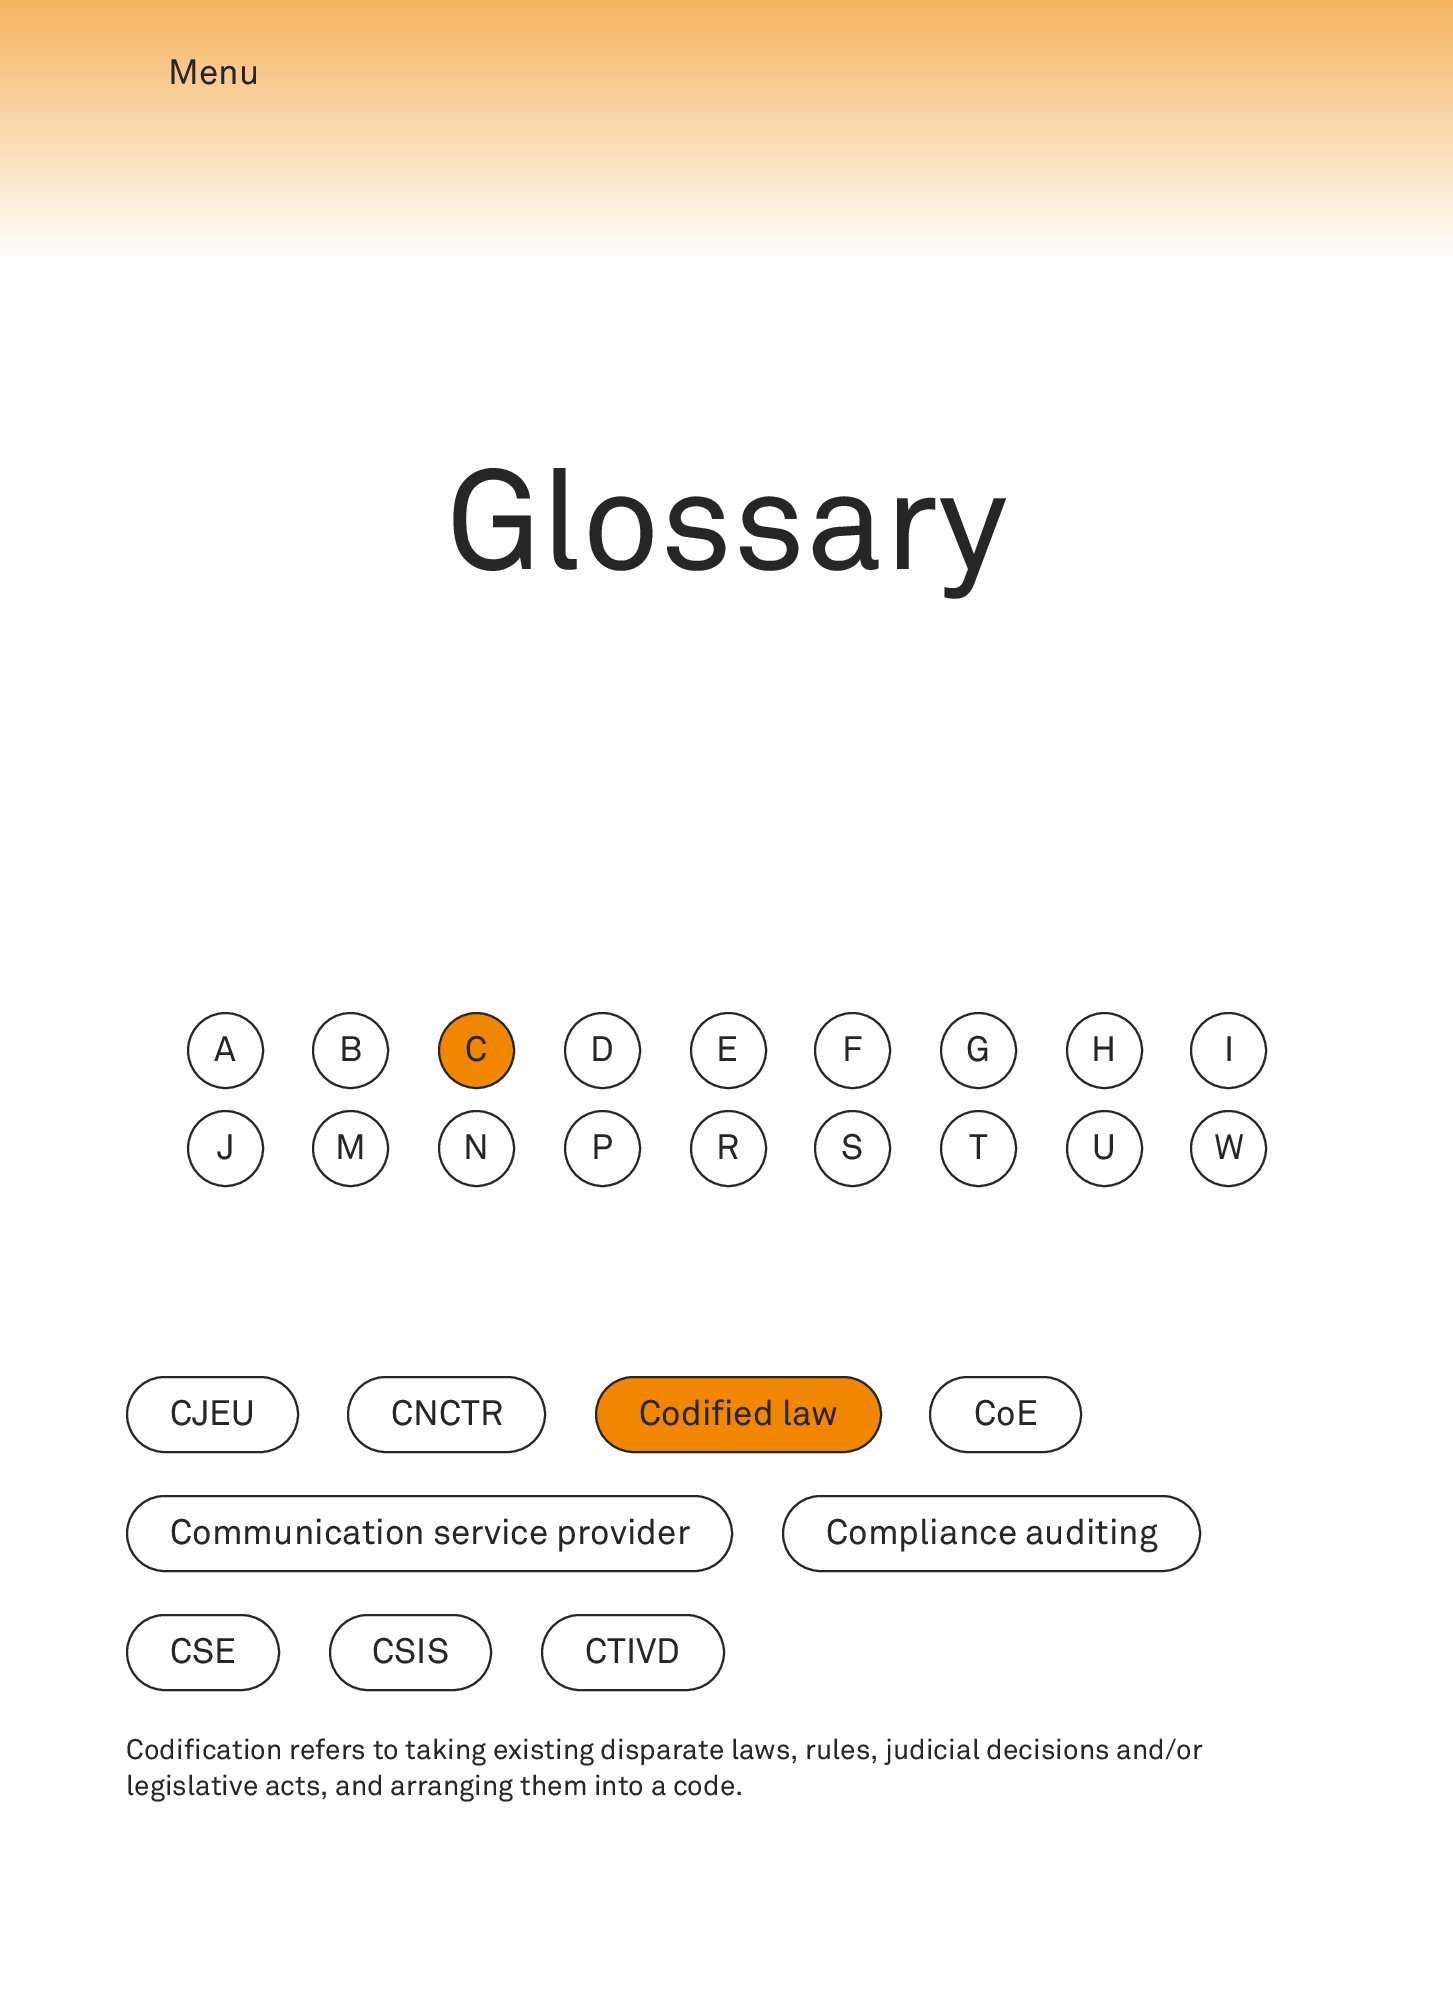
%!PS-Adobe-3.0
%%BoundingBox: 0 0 1453 1999
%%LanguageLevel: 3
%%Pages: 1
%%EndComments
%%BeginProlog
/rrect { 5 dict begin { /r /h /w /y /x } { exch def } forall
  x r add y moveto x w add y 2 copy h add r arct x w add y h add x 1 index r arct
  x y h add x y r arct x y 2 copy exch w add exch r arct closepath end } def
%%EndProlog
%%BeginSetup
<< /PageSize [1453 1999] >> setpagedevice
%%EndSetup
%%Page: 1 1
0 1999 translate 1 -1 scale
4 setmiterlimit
1 setgray
0 0 1453 1999 rectfill
gsave newpath 0 0 moveto 1453 0 lineto 1453 259 lineto 0 259 lineto closepath clip newpath
<< /ShadingType 2 /ColorSpace /DeviceRGB /Coords [727 0 727 263] /Extend [true true] /Function << /FunctionType 2 /Domain [0 1] /C0 [0.965 0.706 0.376] /C1 [1 1 1] /N 1 >> >> shfill grestore
0.149 setgray
2 setlinewidth
newpath 225.5 1050.5 37.5 0 360 arc closepath stroke
newpath 350.5 1050.5 37.5 0 360 arc closepath stroke
0.945 0.529 0.004 setrgbcolor
newpath 476.5 1050.5 37.5 0 360 arc closepath gsave fill grestore
0.149 setgray
stroke
newpath 602.5 1050.5 37.5 0 360 arc closepath stroke
newpath 728.5 1050.5 37.5 0 360 arc closepath stroke
newpath 852.5 1050.5 37.5 0 360 arc closepath stroke
newpath 978.5 1050.5 37.5 0 360 arc closepath stroke
newpath 1104.5 1050.5 37.5 0 360 arc closepath stroke
newpath 1228.5 1050.5 37.5 0 360 arc closepath stroke
newpath 225.5 1148.5 37.5 0 360 arc closepath stroke
newpath 350.5 1148.5 37.5 0 360 arc closepath stroke
newpath 476.5 1148.5 37.5 0 360 arc closepath stroke
newpath 602.5 1148.5 37.5 0 360 arc closepath stroke
newpath 728.5 1148.5 37.5 0 360 arc closepath stroke
newpath 852.5 1148.5 37.5 0 360 arc closepath stroke
newpath 978.5 1148.5 37.5 0 360 arc closepath stroke
newpath 1104.5 1148.5 37.5 0 360 arc closepath stroke
newpath 1228.5 1148.5 37.5 0 360 arc closepath stroke
127 1377 171 75 37.5 rrect stroke
348 1377 197 75 37.5 rrect stroke
0.945 0.529 0.004 setrgbcolor
596 1377 285 75 37.5 rrect gsave fill grestore
0.149 setgray
stroke
930 1377 151 75 37.5 rrect stroke
127 1496 605 75 37.5 rrect stroke
783 1496 417 75 37.5 rrect stroke
127 1615 152 75 37.5 rrect stroke
330 1615 161 75 37.5 rrect stroke
542 1615 182 75 37.5 rrect stroke
/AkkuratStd-Regular [35 0 0 -35 0 0] selectfont
168 84 moveto (Menu) show
/AkkuratStd-Regular [140 0 0 -140 0 0] selectfont
446 569 moveto (Glossary) show
/AkkuratStd-Regular [35 0 0 -35 0 0] selectfont
214 1061 moveto (A) show
339 1061 moveto (B) show
465 1061 moveto (C) show
590 1061 moveto (D) show
716 1061 moveto (E) show
842 1061 moveto (F) show
966 1061 moveto (G) show
1091 1061 moveto (H) show
1224 1061 moveto (I) show
217 1159 moveto (J) show
335 1159 moveto (M) show
463 1159 moveto (N) show
591 1159 moveto (P) show
716 1159 moveto (R) show
841 1159 moveto (S) show
969 1159 moveto (T) show
1092 1159 moveto (U) show
1214 1159 moveto (W) show
170 1425 moveto (CJEU) show
391 1425 moveto (CNCTR) show
639 1425 moveto (Codified law) show
974 1425 moveto (CoE) show
170 1544 moveto (Communication service provider) show
826 1544 moveto (Compliance auditing) show
170 1663 moveto (CSE) show
372 1663 moveto (CSIS) show
585 1663 moveto (CTIVD) show
/AkkuratStd-Regular [28 0 0 -28 0 0] selectfont
126 1759 moveto (Codification refers to taking existing disparate laws, rules, judicial decisions and/or) show
126 1795 moveto (legislative acts, and arranging them into a code.) show
showpage
%%EOF
